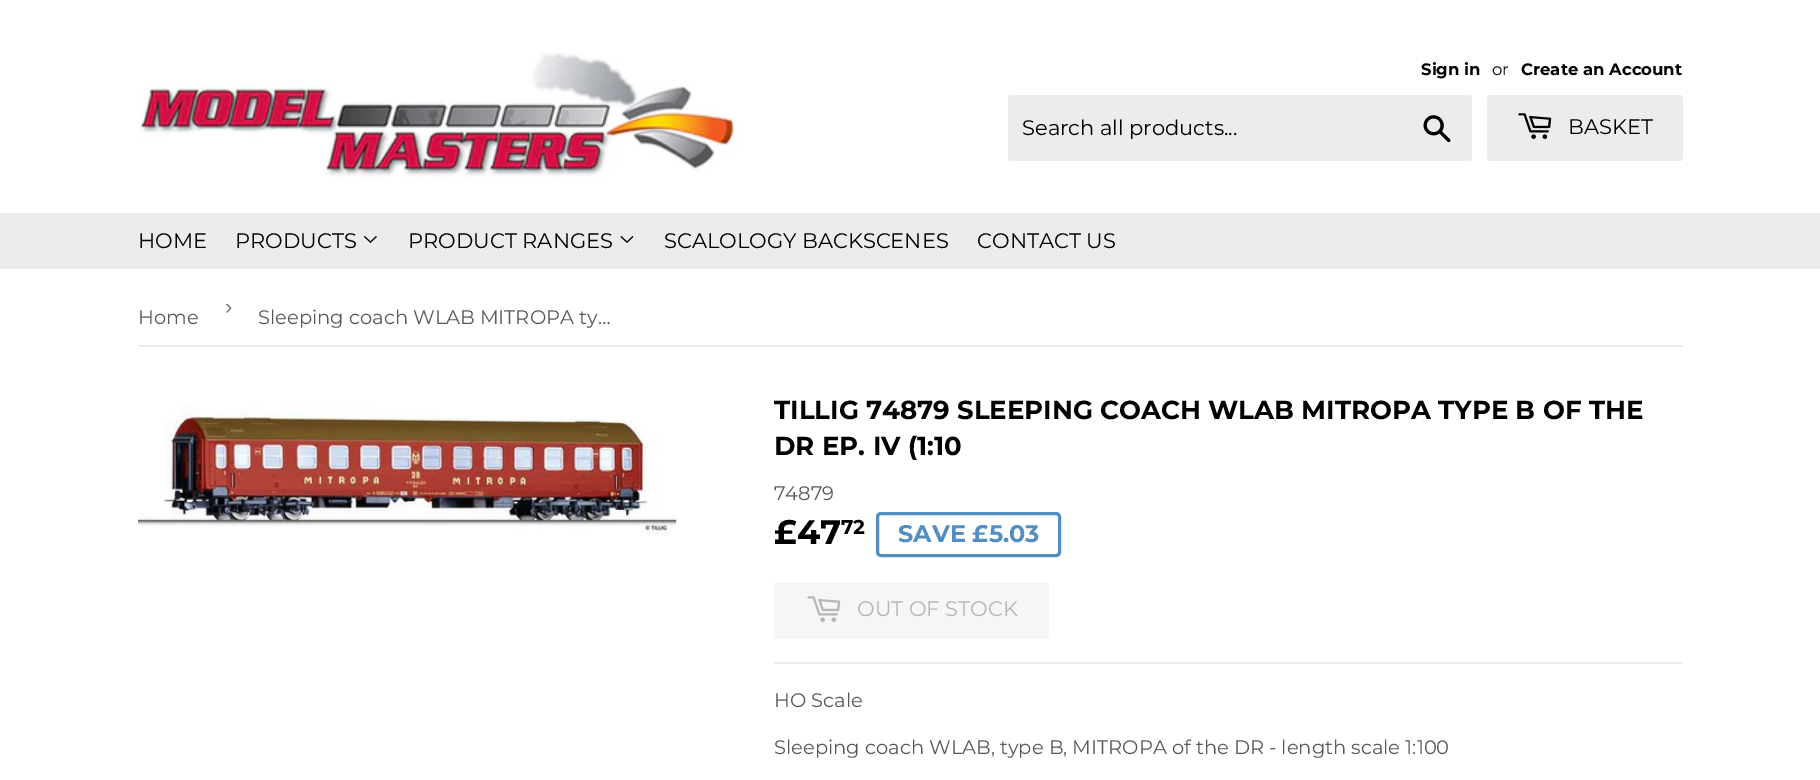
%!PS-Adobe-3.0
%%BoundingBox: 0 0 1820 780
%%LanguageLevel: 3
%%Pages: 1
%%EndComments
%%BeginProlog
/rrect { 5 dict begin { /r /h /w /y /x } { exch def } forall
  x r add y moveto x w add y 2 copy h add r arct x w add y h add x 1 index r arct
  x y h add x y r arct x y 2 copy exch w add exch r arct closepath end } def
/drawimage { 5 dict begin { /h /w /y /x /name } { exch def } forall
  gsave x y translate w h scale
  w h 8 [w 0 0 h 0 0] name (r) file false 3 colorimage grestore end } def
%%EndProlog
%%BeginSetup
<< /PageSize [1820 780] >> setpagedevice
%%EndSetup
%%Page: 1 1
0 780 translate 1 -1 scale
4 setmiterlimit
1 setgray
0 0 1820 780 rectfill
(images/1.raw) 138 52 600 126 drawimage
0.925 setgray
1008 95 464 66 3 rrect fill
(images/2.raw) 1423 115 28 28 drawimage
1487 95 196 66 3 rrect fill
(images/3.raw) 1518 113 34 26 drawimage
0 213 1820 56 rectfill
(images/4.raw) 364 236 13 7 drawimage
(images/5.raw) 620 236 14 7 drawimage
138 345 1545 2 rectfill
(images/6.raw) 138 406 539 130 drawimage
0.322 0.557 0.757 setrgbcolor
3 setlinewidth
877.5 513.5 182 42 3.5 rrect stroke
0.965 setgray
774 582 275 57 3 rrect fill
(images/7.raw) 807 596 34 26 drawimage
0.925 setgray
774 662 909 2 rectfill
/Montserrat-Bold [16.5 0 0 -16.5 0 0] selectfont
0 setgray
1421 75 moveto (Sign in) show
/Montserrat-Regular [16.5 0 0 -16.5 0 0] selectfont
1492 75 moveto (or) show
/Montserrat-Bold [16.5 0 0 -16.5 0 0] selectfont
1521 75 moveto (Create an Account) show
/Montserrat-Regular [21 0 0 -21 0 0] selectfont
1022 135 moveto (Search all products...) show
1568 134 moveto (BASKET) show
138 248 moveto (HOME) show
235 248 moveto (PRODUCTS) show
408 248 moveto (PRODUCT RANGES) show
664 248 moveto (SCALOLOGY BACKSCENES) show
977 248 moveto (CONTACT US) show
/LiberationSans-Regular [22 0 0 -22 0 0] selectfont
0.463 setgray
225 314 moveto (›) show
/Montserrat-Regular [19.5 0 0 -19.5 0 0] selectfont
0.345 setgray
138 324 moveto (Home) show
258 324 moveto (Sleeping coach WLAB MITROPA ty…) show
/Montserrat-Bold [26 0 0 -26 0 0] selectfont
0 setgray
774 419 moveto (TILLIG 74879 SLEEPING COACH WLAB MITROPA TYPE B OF THE) show
774 455 moveto (DR EP. IV \(1:10) show
/Montserrat-Regular [19.5 0 0 -19.5 0 0] selectfont
0.345 setgray
774 500 moveto (74879) show
/Montserrat-Bold [34 0 0 -34 0 0] selectfont
0 setgray
774 544 moveto (£47) show
/Montserrat-Bold [20 0 0 -20 0 0] selectfont
841 534 moveto (72) show
/Montserrat-Bold [24 0 0 -24 0 0] selectfont
0.322 0.557 0.757 setrgbcolor
898 542 moveto (SAVE £5.03) show
/Montserrat-Regular [21 0 0 -21 0 0] selectfont
0.714 setgray
857 616 moveto (OUT OF STOCK) show
/Montserrat-Regular [19.5 0 0 -19.5 0 0] selectfont
0.345 setgray
774 707 moveto (HO Scale) show
774 754 moveto (Sleeping coach WLAB, type B, MITROPA of the DR - length scale 1:100) show
showpage
%%EOF
